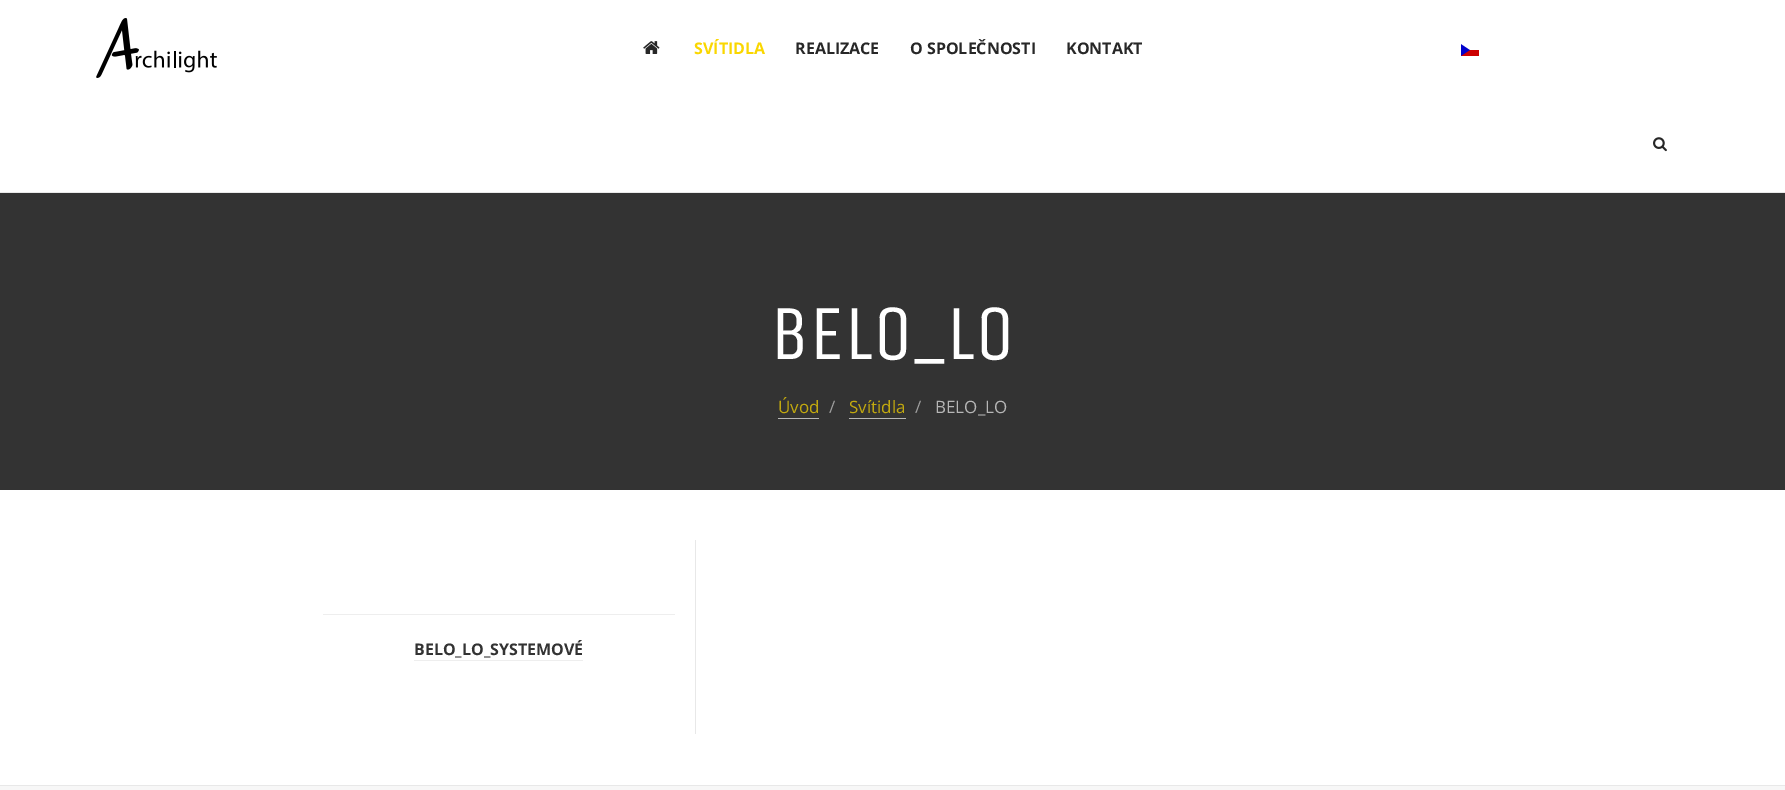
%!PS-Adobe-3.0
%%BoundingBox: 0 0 1785 790
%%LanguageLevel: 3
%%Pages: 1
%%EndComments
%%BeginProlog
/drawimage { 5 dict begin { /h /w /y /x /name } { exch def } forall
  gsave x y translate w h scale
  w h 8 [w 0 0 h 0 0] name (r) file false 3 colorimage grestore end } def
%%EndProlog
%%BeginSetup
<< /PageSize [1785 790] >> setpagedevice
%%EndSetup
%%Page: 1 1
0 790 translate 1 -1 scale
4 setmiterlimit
1 setgray
0 0 1785 790 rectfill
0.91 setgray
0 192 1785 1 rectfill
(images/1.raw) 96 18 121 60 drawimage
(images/2.raw) 643 41 17 13 drawimage
(images/3.raw) 1461 44 18 12 drawimage
(images/4.raw) 1653 137 14 15 drawimage
0.2 setgray
0 193 1785 297 rectfill
0.714 setgray
778 418 41 1 rectfill
849 418 57 1 rectfill
0.91 setgray
695 540 1 195 rectfill
0.933 setgray
323 614 352 1 rectfill
414 660 169 1 rectfill
1 setgray
695 734 1 1 rectfill
0.969 setgray
0 786 1785 4 rectfill
0.91 setgray
0 785 1785 1 rectfill
/OpenSans-Bold [16 0 0 -16 0 0] selectfont
0.98 0.843 0 setrgbcolor
694 54 moveto (SVÍTIDLA) show
0.153 setgray
795 54 moveto (REALIZACE) show
910 54 moveto (O SPOLEČNOSTI) show
1066 54 moveto (KONTAKT) show
/UnicaOne-Regular [78 0 0 -78 0 0] selectfont
1 setgray
770 359 moveto (BELO_LO) show
/OpenSans-Regular [17 0 0 -17 0 0] selectfont
0.761 0.663 0.059 setrgbcolor
778 413 moveto (Úvod) show
0.62 setgray
829 413 moveto (/) show
0.761 0.663 0.059 setrgbcolor
849 413 moveto (Svítidla) show
0.62 setgray
915 413 moveto (/) show
0.714 setgray
935 413 moveto (BELO_LO) show
/OpenSans-Bold [16 0 0 -16 0 0] selectfont
0.2 setgray
414 655 moveto (BELO_LO_SYSTEMOVÉ) show
showpage
%%EOF
